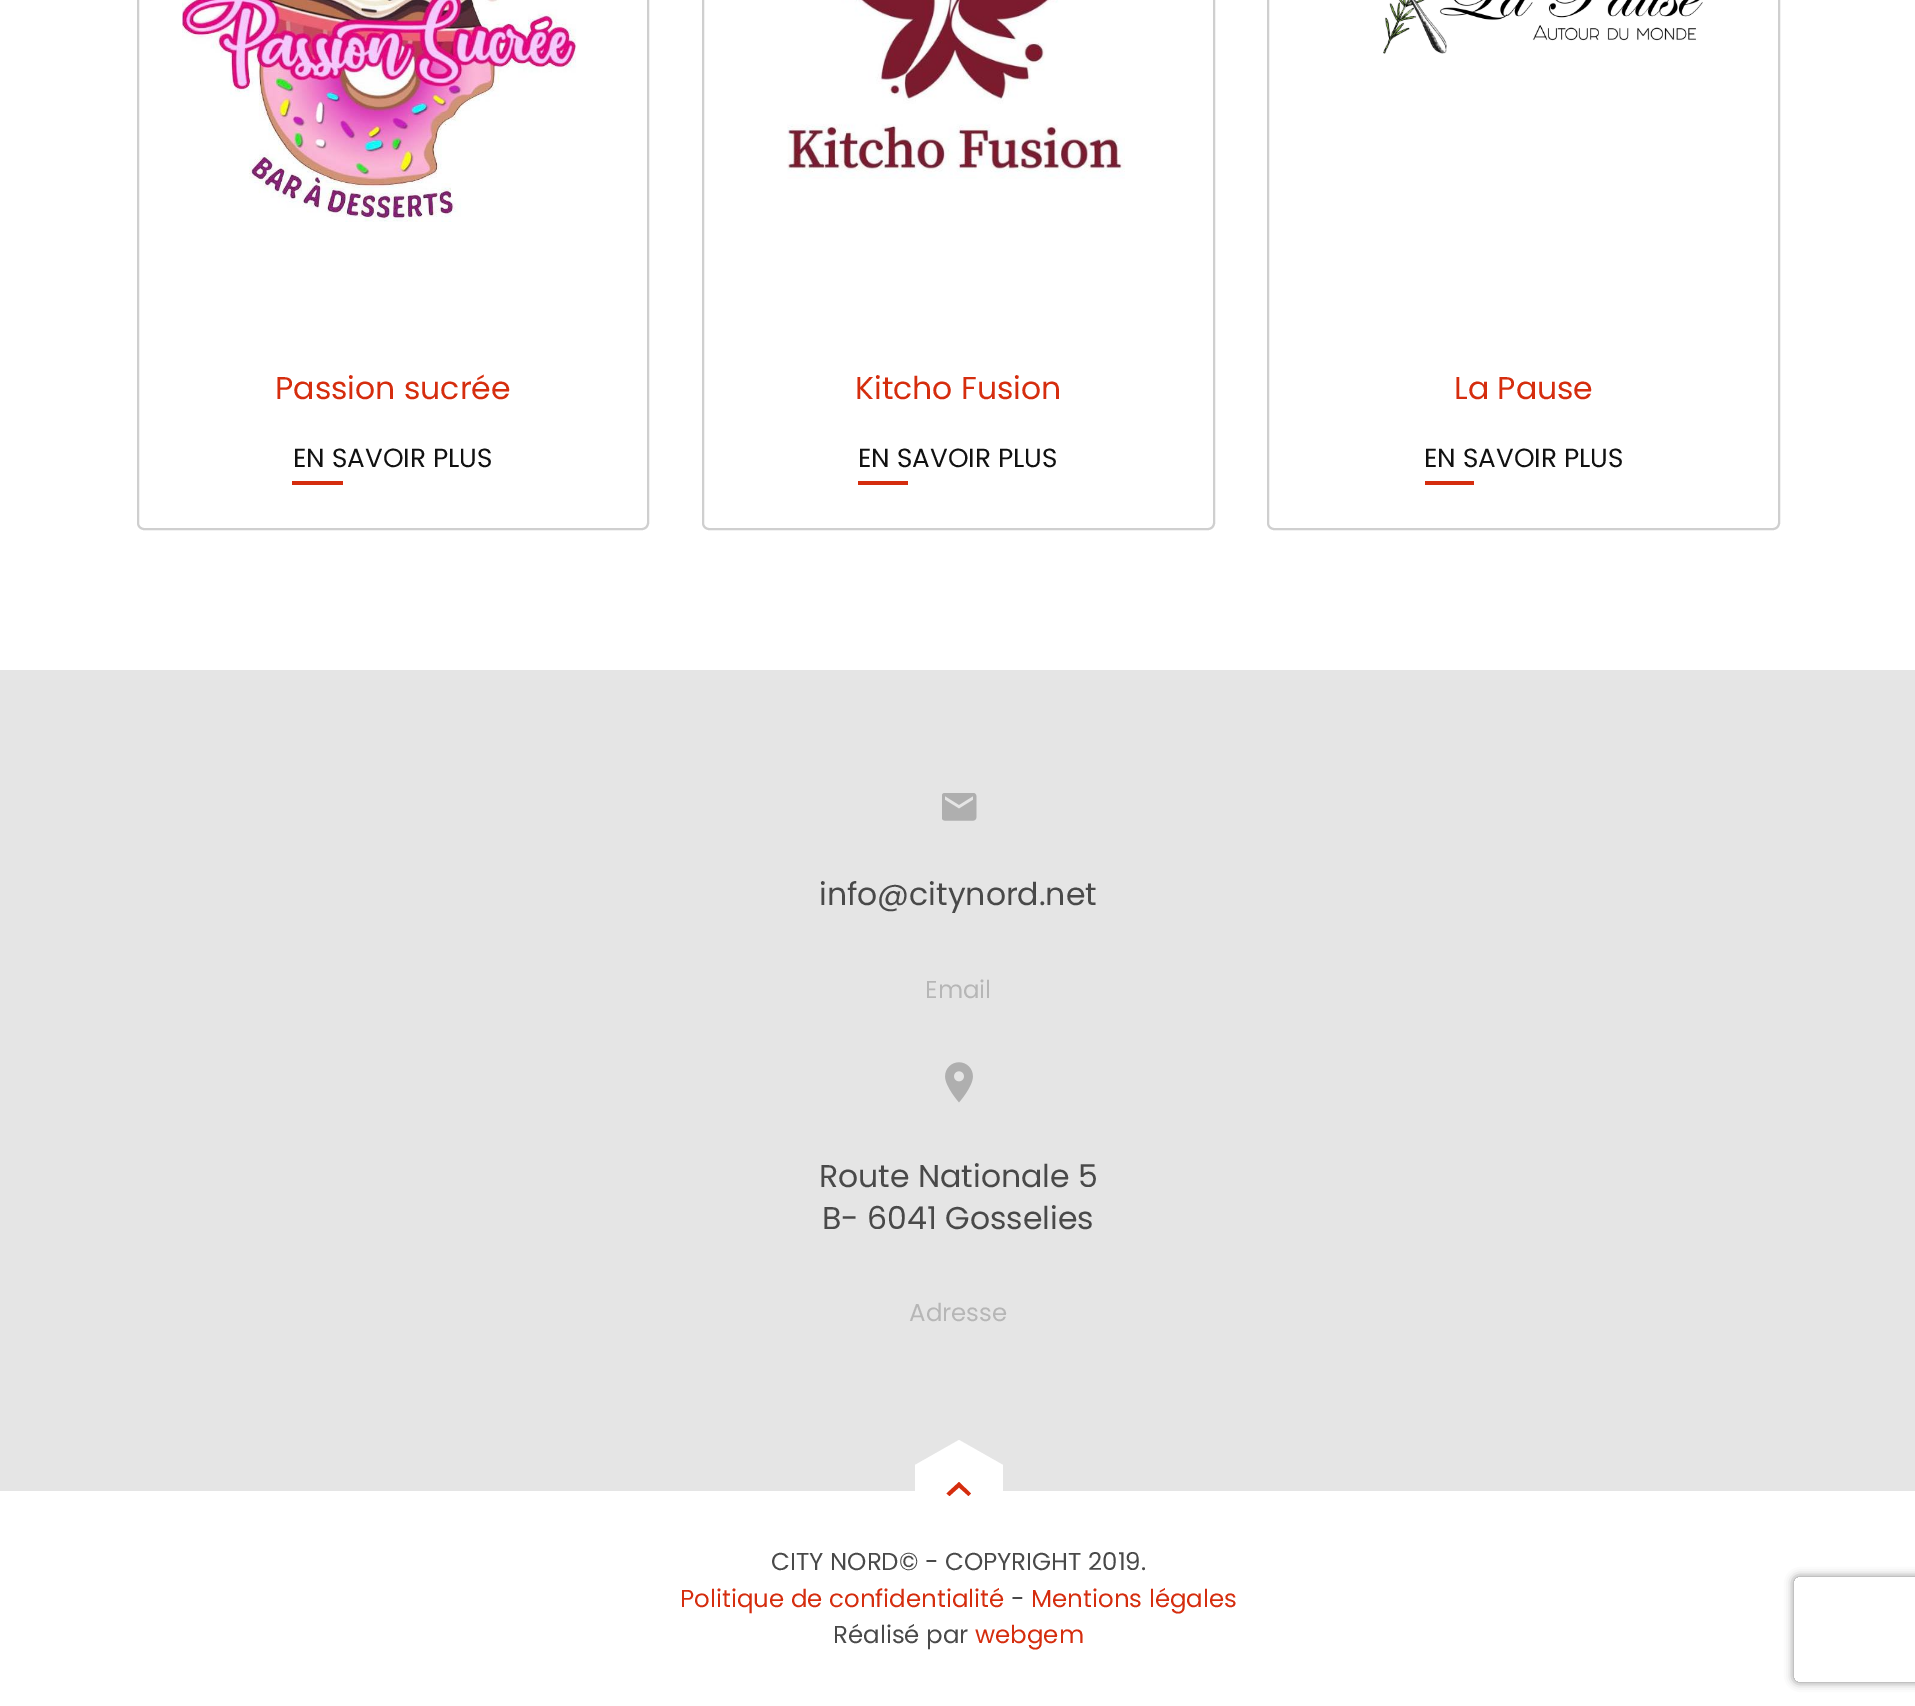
%!PS-Adobe-3.0
%%BoundingBox: 0 0 1915 1706
%%LanguageLevel: 3
%%Pages: 1
%%EndComments
%%BeginProlog
/setalpha { dup .setfillconstantalpha .setstrokeconstantalpha } def
/rrect { 5 dict begin { /r /h /w /y /x } { exch def } forall
  x r add y moveto x w add y 2 copy h add r arct x w add y h add x 1 index r arct
  x y h add x y r arct x y 2 copy exch w add exch r arct closepath end } def
/softshadow { 12 dict begin { /a /b /q /h /w /y /x } { exch def } forall gsave /was 0 def
  9 -2 -9 { dup b mul 4 div /e exch def 1 sub .425 mul 2.718 exch exp 1 add a .99 .min exch div /now exch def
    1 1 now sub 1 was sub div sub setalpha /was now def
    w h .min e 2 mul add 0 gt { x e sub y e sub w e 2 mul add h e 2 mul add
      q e add b .6 mul add w h .min 2 div e add .min 0 .max rrect fill } if } for grestore end } def
/drawimage { 5 dict begin { /h /w /y /x /name } { exch def } forall
  gsave x y translate w h scale
  w h 8 [w 0 0 h 0 0] name (r) file false 3 colorimage grestore end } def
%%EndProlog
%%BeginSetup
<< /PageSize [1915 1706] /PageUsesTransparency true >> setpagedevice
%%EndSetup
%%Page: 1 1
0 .pushpdf14devicefilter
0 1706 translate 1 -1 scale
4 setmiterlimit
1 setgray
0 0 1915 1706 rectfill
0.812 setgray
2 setlinewidth
138 -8 510 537 6 rrect stroke
(images/1.raw) 182 0 395 222 drawimage
0.835 0.176 0.055 setrgbcolor
292 481 51 4 rectfill
0.812 setgray
703 -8 511 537 6 rrect stroke
(images/2.raw) 787 0 338 179 drawimage
0.835 0.176 0.055 setrgbcolor
858 481 50 4 rectfill
0.812 setgray
1268 -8 511 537 6 rrect stroke
(images/3.raw) 1383 0 320 54 drawimage
0.835 0.176 0.055 setrgbcolor
1425 481 49 4 rectfill
0.898 setgray
0 670 1915 821 rectfill
(images/4.raw) 942 793 35 28 drawimage
(images/5.raw) 945 1062 28 41 drawimage
1 setgray
915 1465 88 26 rectfill
0.835 0.176 0.055 setrgbcolor
newpath 946.5 1493.5 moveto 949.5 1496 lineto 959 1487.5 lineto 968.5 1496 lineto 971 1493.5 lineto 959 1482 lineto closepath fill
1 setgray
newpath 1003 1465 moveto 915 1465 lineto 959 1440 lineto closepath fill
gsave
newpath 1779 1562 moveto 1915 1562 lineto 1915 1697 lineto 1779 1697 lineto closepath 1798 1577 moveto 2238 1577 lineto 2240 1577 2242 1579 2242 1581 curveto 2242 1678 lineto 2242 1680 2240 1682 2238 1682 curveto 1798 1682 lineto 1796 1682 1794 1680 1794 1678 curveto 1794 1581 lineto 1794 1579 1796 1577 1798 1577 curveto closepath eoclip newpath
0.502 setgray
1794 1577 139 105 4 4.5 1 softshadow
grestore
/Poppins-Regular [31.5 0 0 -31.5 0 0] selectfont
0.835 0.176 0.055 setrgbcolor
275 399 moveto (Passion sucrée) show
/Poppins-Regular [26.25 0 0 -26.25 0 0] selectfont
0.067 setgray
293 467 moveto (EN SAVOIR PLUS) show
/Poppins-Regular [31.5 0 0 -31.5 0 0] selectfont
0.835 0.176 0.055 setrgbcolor
855 399 moveto (Kitcho Fusion) show
/Poppins-Regular [26.25 0 0 -26.25 0 0] selectfont
0.067 setgray
858 467 moveto (EN SAVOIR PLUS) show
/Poppins-Regular [31.5 0 0 -31.5 0 0] selectfont
0.835 0.176 0.055 setrgbcolor
1454 399 moveto (La Pause) show
/Poppins-Regular [26.25 0 0 -26.25 0 0] selectfont
0.067 setgray
1424 467 moveto (EN SAVOIR PLUS) show
/Poppins-Regular [31.5 0 0 -31.5 0 0] selectfont
0.286 setgray
819 905 moveto (info@citynord.net) show
/Poppins-Regular [24.5 0 0 -24.5 0 0] selectfont
0.714 setgray
925 998 moveto (Email) show
/Poppins-Regular [31.5 0 0 -31.5 0 0] selectfont
0.286 setgray
819 1187 moveto (Route Nationale 5) show
822 1229 moveto (B- 6041 Gosselies) show
/Poppins-Regular [24.5 0 0 -24.5 0 0] selectfont
0.714 setgray
909 1321 moveto (Adresse) show
0.286 setgray
771 1570 moveto (CITY NORD© - COPYRIGHT 2019.) show
0.835 0.176 0.055 setrgbcolor
680 1607 moveto (Politique de confidentialité) show
0.286 setgray
1011 1607 moveto (-) show
0.835 0.176 0.055 setrgbcolor
1031 1607 moveto (Mentions légales) show
0.286 setgray
833 1643 moveto (Réalisé par) show
0.835 0.176 0.055 setrgbcolor
975 1643 moveto (webgem) show
.poppdf14devicefilter showpage
%%EOF
